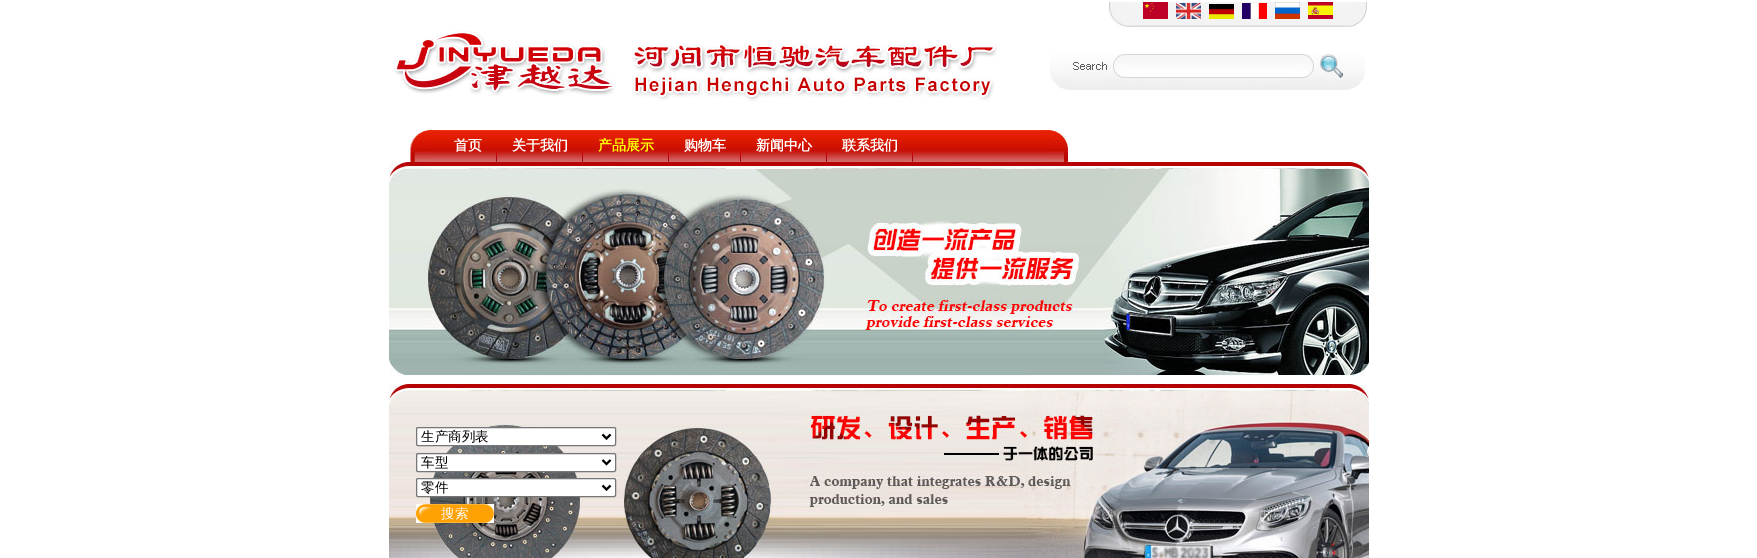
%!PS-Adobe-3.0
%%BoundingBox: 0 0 1757 558
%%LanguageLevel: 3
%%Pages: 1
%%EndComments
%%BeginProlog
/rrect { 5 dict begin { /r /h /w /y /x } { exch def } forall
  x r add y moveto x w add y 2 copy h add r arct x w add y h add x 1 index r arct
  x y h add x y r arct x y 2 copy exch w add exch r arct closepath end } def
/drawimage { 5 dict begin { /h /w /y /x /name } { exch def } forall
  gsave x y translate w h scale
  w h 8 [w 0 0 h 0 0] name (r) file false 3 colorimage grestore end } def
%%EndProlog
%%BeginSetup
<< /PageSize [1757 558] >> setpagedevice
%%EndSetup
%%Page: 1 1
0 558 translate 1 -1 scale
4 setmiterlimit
1 setgray
0 0 1757 558 rectfill
(images/1.raw) 1129 2 220 25 drawimage
(images/2.raw) 1109 2 20 25 drawimage
(images/3.raw) 1349 2 18 25 drawimage
(images/4.raw) 1143 2 25 17 drawimage
(images/5.raw) 1176 3 25 16 drawimage
(images/6.raw) 1209 4 25 15 drawimage
(images/7.raw) 1242 3 25 16 drawimage
(images/8.raw) 1275 2 25 17 drawimage
(images/9.raw) 1308 2 25 17 drawimage
(images/10.raw) 394 31 603 70 drawimage
(images/11.raw) 1050 54 315 36 drawimage
(images/12.raw) 433 130 613 32 drawimage
(images/13.raw) 389 130 44 32 drawimage
(images/14.raw) 1046 130 43 32 drawimage
(images/15.raw) 496 152 1 10 drawimage
(images/15.raw) 582 152 1 10 drawimage
(images/15.raw) 668 152 1 10 drawimage
(images/15.raw) 740 152 1 10 drawimage
(images/15.raw) 826 152 1 10 drawimage
(images/15.raw) 912 152 1 10 drawimage
(images/16.raw) 389 162 980 214 drawimage
(images/17.raw) 389 384 980 174 drawimage
416.5 427.5 199 18 1.5 rrect gsave fill grestore
0.463 setgray
stroke
0 setgray
2 setlinewidth
newpath 602.5 434.5 moveto 606.5 438.5 lineto 610.5 434.5 lineto stroke
1 setgray
416.5 453.5 199 18 1.5 rrect gsave fill grestore
0.463 setgray
1 setlinewidth
stroke
0 setgray
2 setlinewidth
newpath 602.5 460 moveto 606.5 464 lineto 610.5 460 lineto stroke
1 setgray
416.5 478.5 199 18 1.5 rrect gsave fill grestore
0.463 setgray
1 setlinewidth
stroke
0 setgray
2 setlinewidth
newpath 602.5 485.5 moveto 606.5 489.5 lineto 610.5 485.5 lineto stroke
(images/18.raw) 416 504 78 19 drawimage
/WenQuanYiZenHei-Bold [14 0 0 -14 0 0] selectfont
1 setgray
454 150 moveto (首页) show
512 150 moveto (关于我们) show
1 1 0 setrgbcolor
598 150 moveto (产品展示) show
1 setgray
684 150 moveto (购物车) show
756 150 moveto (新闻中心) show
842 150 moveto (联系我们) show
/WenQuanYiZenHei-Medium [13.5 0 0 -13.5 0 0] selectfont
0 setgray
421 441 moveto (生产商列表) show
gsave
421 454 178 17 rectclip
421 467 moveto (车型) show
grestore
421 492 moveto (零件) show
1 setgray
441 518 moveto (搜索) show
showpage
%%EOF
